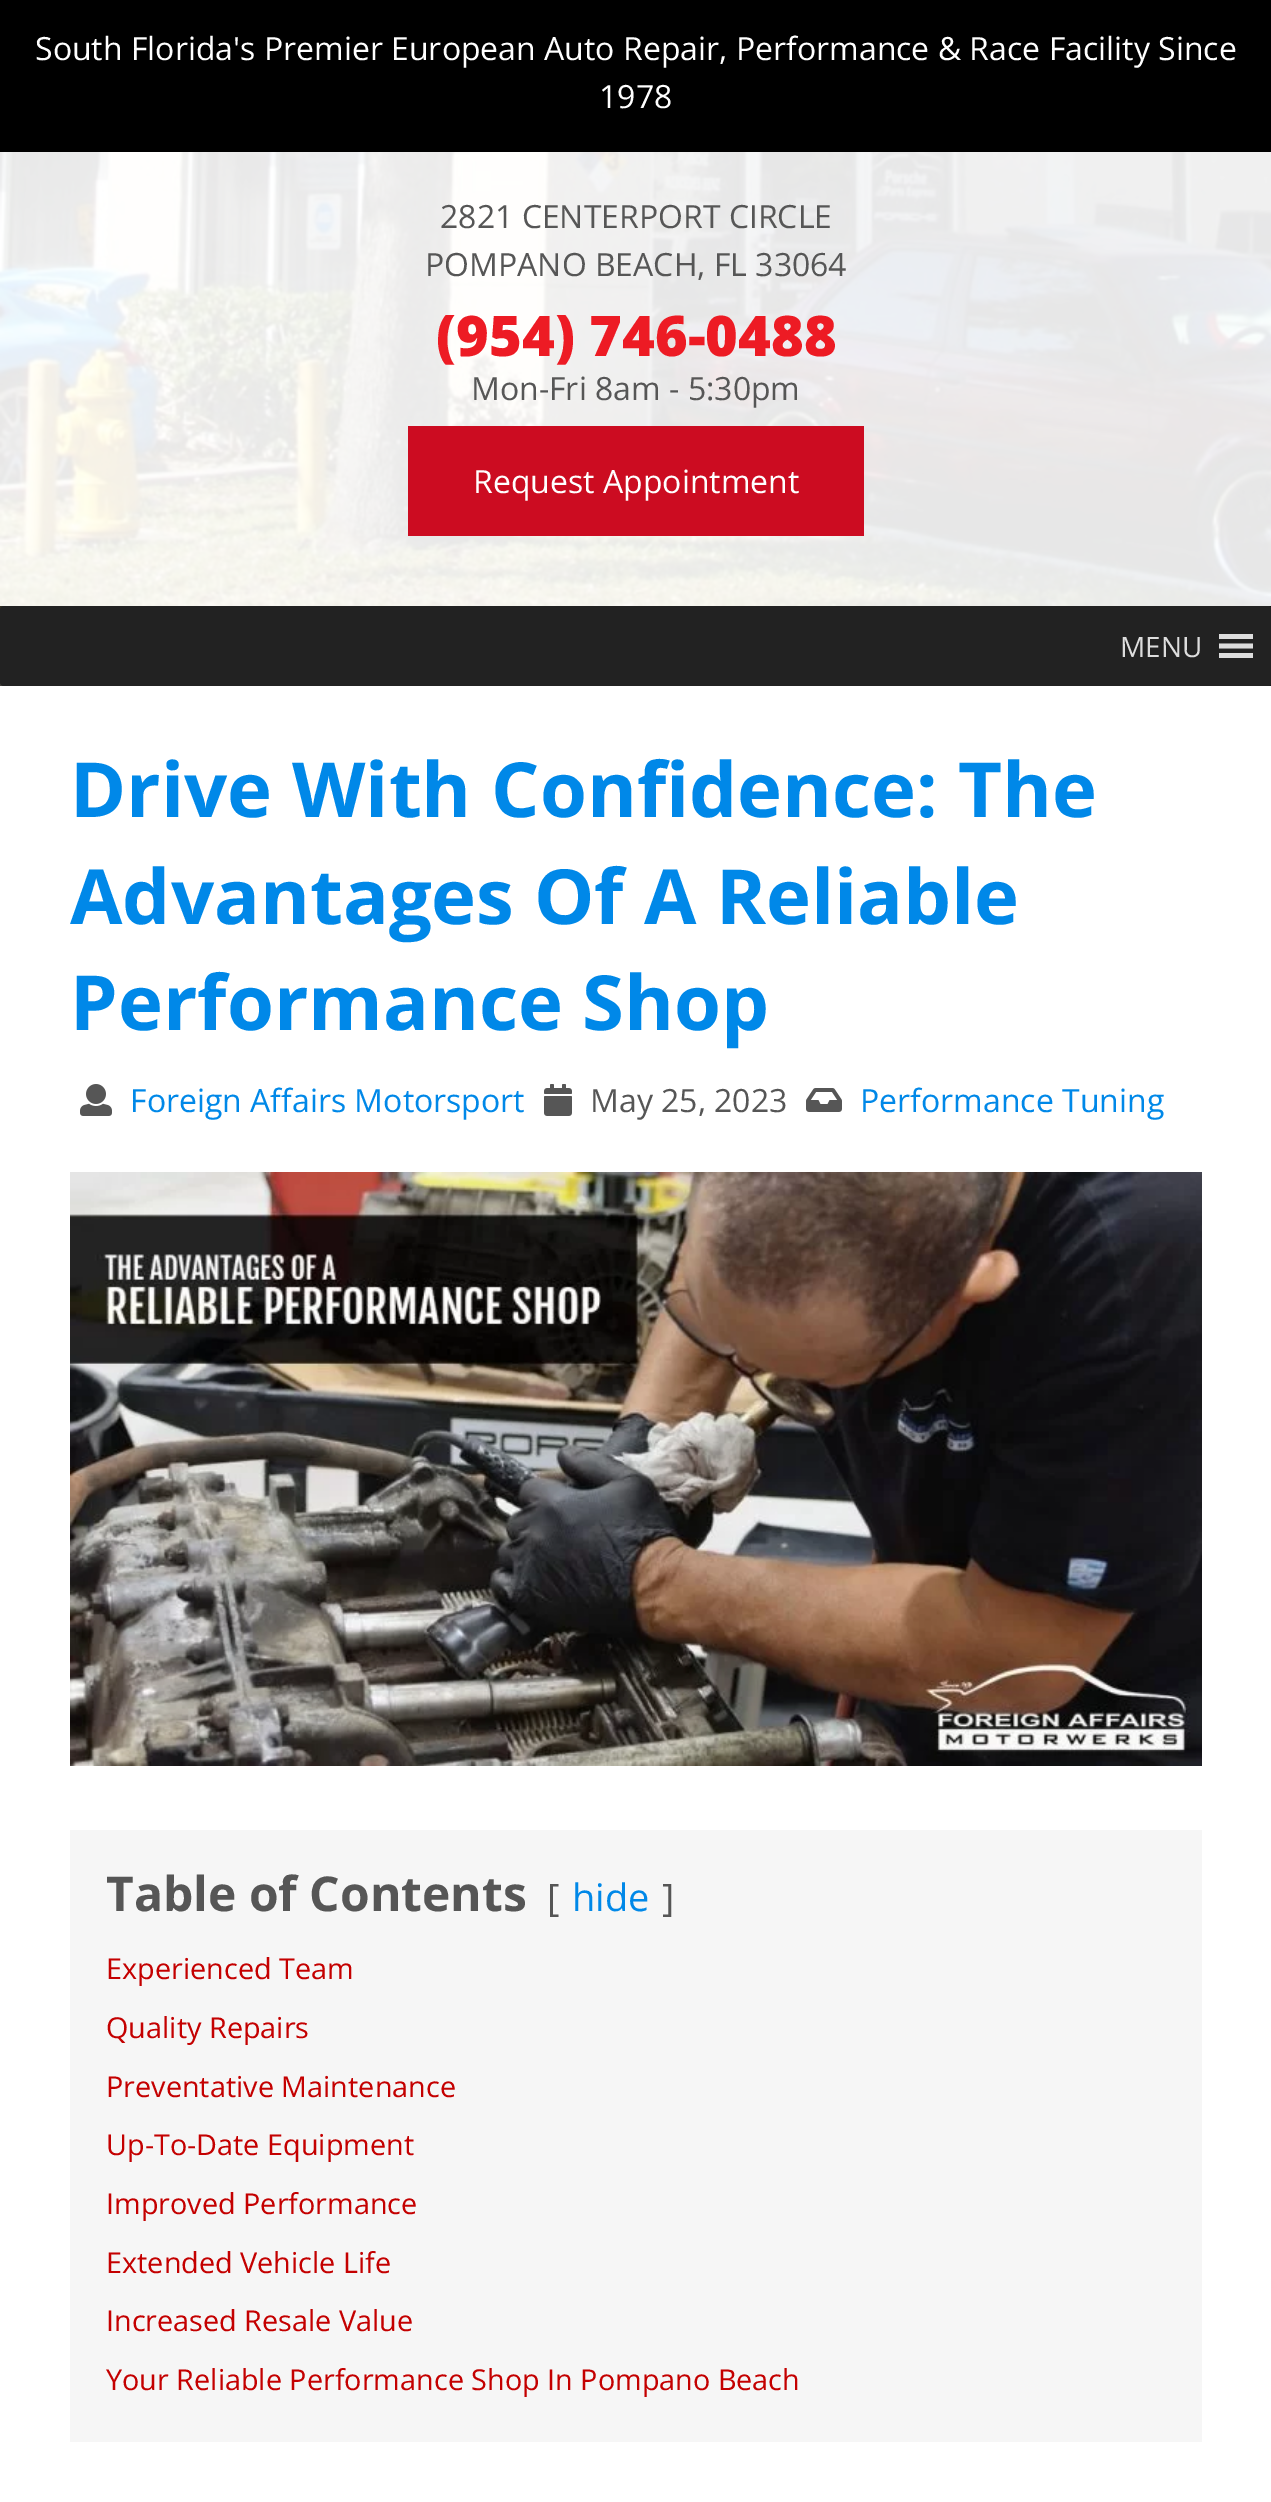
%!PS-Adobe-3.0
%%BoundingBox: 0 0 1271 2502
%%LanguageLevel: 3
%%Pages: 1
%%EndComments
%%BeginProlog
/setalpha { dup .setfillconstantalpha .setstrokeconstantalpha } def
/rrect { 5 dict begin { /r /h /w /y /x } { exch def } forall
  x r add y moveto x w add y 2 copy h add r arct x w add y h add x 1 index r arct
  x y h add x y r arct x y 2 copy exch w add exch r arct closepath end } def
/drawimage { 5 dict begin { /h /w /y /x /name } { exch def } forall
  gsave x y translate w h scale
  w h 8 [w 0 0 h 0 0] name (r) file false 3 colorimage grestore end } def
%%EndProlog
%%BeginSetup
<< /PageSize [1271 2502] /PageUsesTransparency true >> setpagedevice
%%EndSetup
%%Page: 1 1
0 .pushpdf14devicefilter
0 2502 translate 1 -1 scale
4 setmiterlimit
1 setgray
0 0 1271 2502 rectfill
(images/1.raw) 0 152 1271 534 drawimage
0 setgray
0 0 1271 152 rectfill
0.9 setalpha
1 setgray
0 152 1271 454 rectfill
1 setalpha
0.8 0.047 0.129 setrgbcolor
408 426 456 110 rectfill
0.7 setalpha
0 setgray
0 606 1271 80 rectfill
1 setalpha
0.133 setgray
0 606 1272 80 4 rrect fill
0.867 setgray
newpath 1219 658 moveto 1253 658 lineto 1253 653 lineto 1219 653 lineto closepath 1219 634 moveto 1219 639 lineto 1253 639 lineto 1253 634 lineto closepath 1219 648.5 moveto 1253 648.5 lineto 1253 643.5 lineto 1219 643.5 lineto closepath fill
(images/2.raw) 80 1084 32 32 drawimage
(images/3.raw) 544 1084 28 32 drawimage
(images/4.raw) 806 1088 36 24 drawimage
(images/5.raw) 70 1172 1132 594 drawimage
0.965 setgray
70 1830 1132 612 rectfill
/OpenSans-Regular [32 0 0 -32 0 0] selectfont
1 setgray
35 60 moveto (South Florida's Premier European Auto Repair, Performance & Race Facility Since) show
599 108 moveto (1978) show
0.337 setgray
440 228 moveto (2821 CENTERPORT CIRCLE) show
425 276 moveto (POMPANO BEACH, FL 33064) show
/OpenSans-ExtraBold [56 0 0 -56 0 0] selectfont
0.929 0.106 0.141 setrgbcolor
436 356 moveto (\(954\) 746-0488) show
/OpenSans-Regular [32 0 0 -32 0 0] selectfont
0.337 setgray
471 400 moveto (Mon-Fri 8am - 5:30pm) show
1 setgray
473 493 moveto (Request Appointment) show
/OpenSans-Regular [28 0 0 -28 0 0] selectfont
0.867 setgray
1120 657 moveto (MENU) show
/OpenSans-Bold [76 0 0 -76 0 0] selectfont
0 0.533 0.91 setrgbcolor
70 817 moveto (Drive With Confidence: The) show
70 924 moveto (Advantages Of A Reliable) show
70 1030 moveto (Performance Shop) show
/OpenSans-Regular [32 0 0 -32 0 0] selectfont
130 1112 moveto (Foreign Affairs Motorsport) show
0.337 setgray
590 1112 moveto (May 25, 2023) show
0 0.533 0.91 setrgbcolor
860 1112 moveto (Performance Tuning) show
/OpenSans-Bold [48 0 0 -48 0 0] selectfont
0.337 setgray
106 1911 moveto (Table of Contents) show
/OpenSans-Regular [38 0 0 -38 0 0] selectfont
547 1911 moveto ([) show
0 0.533 0.91 setrgbcolor
572 1911 moveto (hide) show
0.337 setgray
662 1911 moveto (]) show
/OpenSans-Regular [28.8 0 0 -28.8 0 0] selectfont
0.769 0 0 setrgbcolor
106 1979 moveto (Experienced Team) show
106 2038 moveto (Quality Repairs) show
106 2097 moveto (Preventative Maintenance) show
106 2155 moveto (Up-To-Date Equipment) show
106 2214 moveto (Improved Performance) show
106 2273 moveto (Extended Vehicle Life) show
106 2331 moveto (Increased Resale Value) show
106 2390 moveto (Your Reliable Performance Shop In Pompano Beach) show
.poppdf14devicefilter showpage
%%EOF
